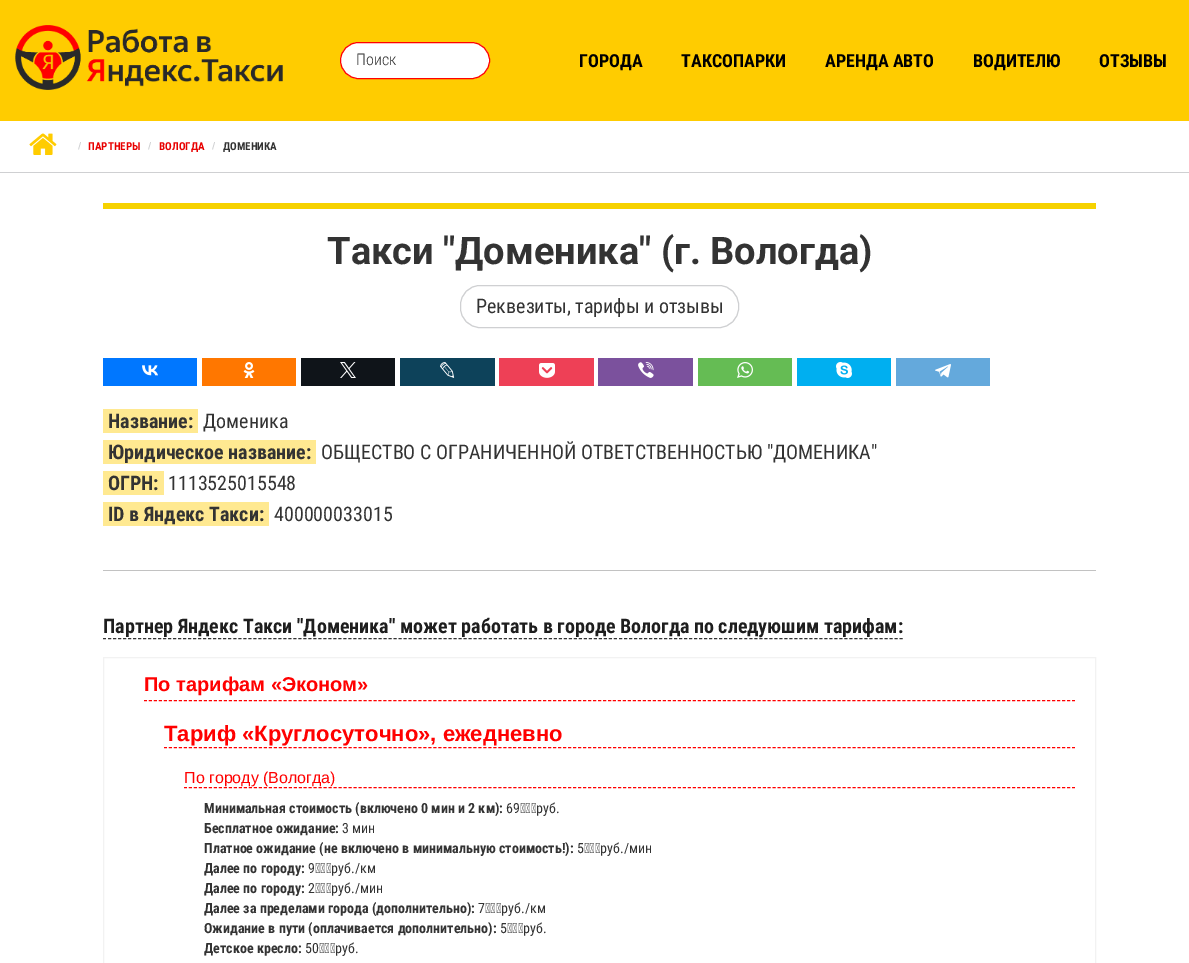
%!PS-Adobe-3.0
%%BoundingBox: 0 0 1189 963
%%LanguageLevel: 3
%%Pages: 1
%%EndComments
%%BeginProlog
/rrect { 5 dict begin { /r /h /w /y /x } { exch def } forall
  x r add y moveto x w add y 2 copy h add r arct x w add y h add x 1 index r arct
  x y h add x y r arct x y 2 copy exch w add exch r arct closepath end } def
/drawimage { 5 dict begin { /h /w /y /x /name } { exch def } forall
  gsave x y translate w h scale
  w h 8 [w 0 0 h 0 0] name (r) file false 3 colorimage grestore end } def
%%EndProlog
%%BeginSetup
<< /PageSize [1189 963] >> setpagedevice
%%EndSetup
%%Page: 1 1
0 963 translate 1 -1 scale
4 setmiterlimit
1 setgray
0 0 1189 963 rectfill
1 0.8 0 setrgbcolor
0 0 1189 121 rectfill
(images/1.raw) 15 25 268 65 drawimage
1 setgray
340.5 42.5 149 36 18 rrect gsave fill grestore
1 0 0 setrgbcolor
stroke
0.812 0.816 0.824 setrgbcolor
0 172 1189 1 rectfill
(images/2.raw) 29 133 28 22 drawimage
0.965 0.824 0 setrgbcolor
103 203 993 6 rectfill
0.812 0.816 0.824 setrgbcolor
460.5 285.5 278 42 19.5 rrect stroke
0 0.467 1 setrgbcolor
103 358 94 28 rectfill
(images/3.raw) 142 365 16 11 drawimage
1 0.467 0 setrgbcolor
202 358 94 28 rectfill
(images/4.raw) 243 362 12 16 drawimage
0.059 0.078 0.098 setrgbcolor
301 358 94 28 rectfill
(images/5.raw) 340 362 16 16 drawimage
0.051 0.259 0.353 setrgbcolor
400 358 95 28 rectfill
(images/6.raw) 440 362 15 16 drawimage
0.933 0.251 0.337 setrgbcolor
499 358 95 28 rectfill
(images/7.raw) 539 363 16 15 drawimage
0.482 0.318 0.616 setrgbcolor
598 358 95 28 rectfill
(images/8.raw) 638 362 16 16 drawimage
0.396 0.737 0.329 setrgbcolor
698 358 94 28 rectfill
(images/9.raw) 737 362 16 16 drawimage
0 0.686 0.941 setrgbcolor
797 358 94 28 rectfill
(images/10.raw) 836 362 16 16 drawimage
0.392 0.663 0.863 setrgbcolor
896 358 94 28 rectfill
(images/11.raw) 935 364 16 14 drawimage
1 0.914 0.569 setrgbcolor
103 409 95 24 rectfill
103 440 213 24 rectfill
103 471 61 24 rectfill
103 502 166 24 rectfill
0.761 setgray
103 570 993 1 rectfill
0.2 setgray
[3 2.01] 0 setdash
newpath 103 638.5 moveto 903 638.5 lineto stroke
0.949 setgray
[] 0 setdash
103.5 657.5 992 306 rectstroke
1 0 0 setrgbcolor
[3 1.99] 0 setdash
newpath 144 700.5 moveto 1075 700.5 lineto stroke
newpath 164 747.5 moveto 1075 747.5 lineto stroke
newpath 184 787.5 moveto 1075 787.5 lineto stroke
/RobotoCondensed-Light [16 0 0 -16 0 0] selectfont
0.2 setgray
356 65 moveto (Поиск) show
/RobotoCondensed-Bold [18 0 0 -18 0 0] selectfont
0 setgray
579 67 moveto (ГОРОДА) show
681 67 moveto (ТАКСОПАРКИ) show
825 67 moveto (АРЕНДА АВТО) show
973 67 moveto (ВОДИТЕЛЮ) show
1099 67 moveto (ОТЗЫВЫ) show
/RobotoCondensed-Bold [10 0 0 -10 0 0] selectfont
0.812 0.816 0.824 setrgbcolor
78 149 moveto (/) show
/RobotoCondensed-Bold [11 0 0 -11 0 0] selectfont
0.91 0 0 setrgbcolor
88 150 moveto (ПАРТНЕРЫ) show
/RobotoCondensed-Bold [10 0 0 -10 0 0] selectfont
0.812 0.816 0.824 setrgbcolor
148 149 moveto (/) show
/RobotoCondensed-Bold [11 0 0 -11 0 0] selectfont
0.91 0 0 setrgbcolor
159 150 moveto (ВОЛОГДА) show
/RobotoCondensed-Bold [10 0 0 -10 0 0] selectfont
0.812 0.816 0.824 setrgbcolor
212 149 moveto (/) show
/RobotoCondensed-Bold [11 0 0 -11 0 0] selectfont
0.2 setgray
223 150 moveto (ДОМЕНИКА) show
/Roboto-Bold [38 0 0 -38 0 0] selectfont
327 264 moveto (Такси "Доменика" \(г. Вологда\)) show
/RobotoCondensed-Regular [20 0 0 -20 0 0] selectfont
476 313 moveto (Реквезиты, тарифы и отзывы) show
/RobotoCondensed-Bold [20 0 0 -20 0 0] selectfont
108 428 moveto (Название:) show
/RobotoCondensed-Regular [20 0 0 -20 0 0] selectfont
203 428 moveto (Доменика) show
/RobotoCondensed-Bold [20 0 0 -20 0 0] selectfont
108 459 moveto (Юридическое название:) show
/RobotoCondensed-Regular [20 0 0 -20 0 0] selectfont
321 459 moveto (ОБЩЕСТВО С ОГРАНИЧЕННОЙ ОТВЕТСТВЕННОСТЬЮ "ДОМЕНИКА") show
/RobotoCondensed-Bold [20 0 0 -20 0 0] selectfont
108 490 moveto (ОГРН:) show
/RobotoCondensed-Regular [20 0 0 -20 0 0] selectfont
168 490 moveto (1113525015548) show
/RobotoCondensed-Bold [20 0 0 -20 0 0] selectfont
108 521 moveto (ID в Яндекс Такси:) show
/RobotoCondensed-Regular [20 0 0 -20 0 0] selectfont
274 521 moveto (400000033015) show
/RobotoCondensed-Bold [20 0 0 -20 0 0] selectfont
0.118 setgray
103 633 moveto (Партнер Яндекс Такси "Доменика" может работать в городе Вологда по следуюшим тарифам:) show
/LiberationSans-Bold [20 0 0 -20 0 0] selectfont
1 0 0 setrgbcolor
144 691 moveto (По тарифам «Эконом») show
/LiberationSans-Bold [22 0 0 -22 0 0] selectfont
164 741 moveto (Тариф «Круглосуточно», ежедневно) show
/LiberationSans-Regular [16 0 0 -16 0 0] selectfont
184 783 moveto (По городу \(Вологда\)) show
/RobotoCondensed-Bold [14 0 0 -14 0 0] selectfont
0.2 setgray
204 813 moveto (Минимальная стоимость \(включено 0 мин и 2 км\):) show
/RobotoCondensed-Regular [14 0 0 -14 0 0] selectfont
506 813 moveto (69 руб.) show
/RobotoCondensed-Bold [14 0 0 -14 0 0] selectfont
204 833 moveto (Бесплатное ожидание:) show
/RobotoCondensed-Regular [14 0 0 -14 0 0] selectfont
342 833 moveto (3 мин) show
/RobotoCondensed-Bold [14 0 0 -14 0 0] selectfont
204 853 moveto (Платное ожидание \(не включено в минимальную стоимость!\):) show
/RobotoCondensed-Regular [14 0 0 -14 0 0] selectfont
577 853 moveto (5 руб./мин) show
/RobotoCondensed-Bold [14 0 0 -14 0 0] selectfont
204 873 moveto (Далее по городу:) show
/RobotoCondensed-Regular [14 0 0 -14 0 0] selectfont
308 873 moveto (9 руб./км) show
/RobotoCondensed-Bold [14 0 0 -14 0 0] selectfont
204 893 moveto (Далее по городу:) show
/RobotoCondensed-Regular [14 0 0 -14 0 0] selectfont
308 893 moveto (2 руб./мин) show
/RobotoCondensed-Bold [14 0 0 -14 0 0] selectfont
204 913 moveto (Далее за пределами города \(дополнительно\):) show
/RobotoCondensed-Regular [14 0 0 -14 0 0] selectfont
478 913 moveto (7 руб./км) show
/RobotoCondensed-Bold [14 0 0 -14 0 0] selectfont
204 933 moveto (Ожидание в пути \(оплачивается дополнительно\):) show
/RobotoCondensed-Regular [14 0 0 -14 0 0] selectfont
500 933 moveto (5 руб.) show
/RobotoCondensed-Bold [14 0 0 -14 0 0] selectfont
204 953 moveto (Детское кресло:) show
/RobotoCondensed-Regular [14 0 0 -14 0 0] selectfont
305 953 moveto (50 руб.) show
showpage
%%EOF
